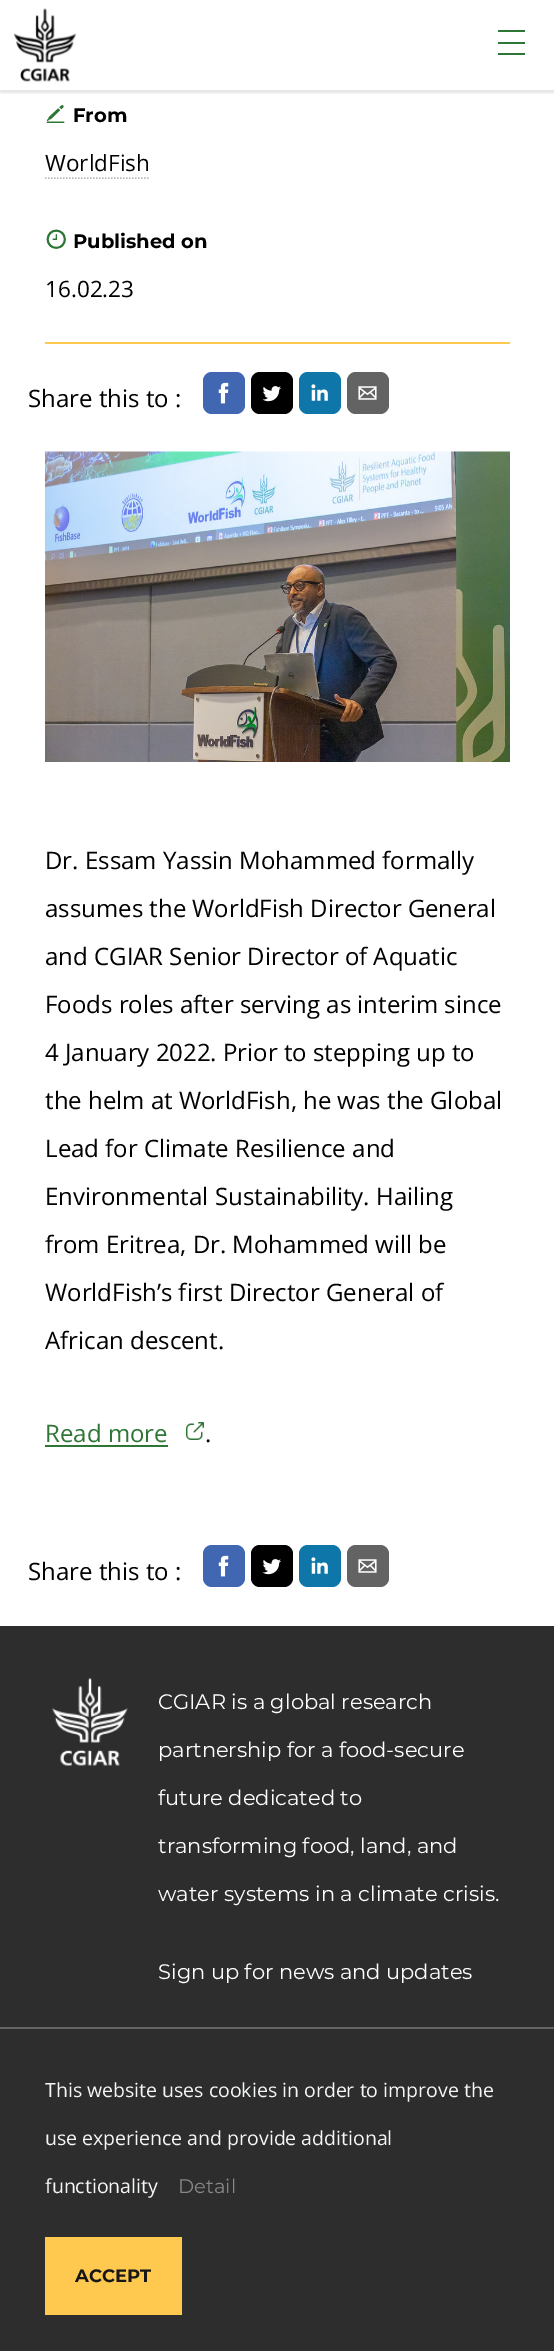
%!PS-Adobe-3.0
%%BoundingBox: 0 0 554 2351
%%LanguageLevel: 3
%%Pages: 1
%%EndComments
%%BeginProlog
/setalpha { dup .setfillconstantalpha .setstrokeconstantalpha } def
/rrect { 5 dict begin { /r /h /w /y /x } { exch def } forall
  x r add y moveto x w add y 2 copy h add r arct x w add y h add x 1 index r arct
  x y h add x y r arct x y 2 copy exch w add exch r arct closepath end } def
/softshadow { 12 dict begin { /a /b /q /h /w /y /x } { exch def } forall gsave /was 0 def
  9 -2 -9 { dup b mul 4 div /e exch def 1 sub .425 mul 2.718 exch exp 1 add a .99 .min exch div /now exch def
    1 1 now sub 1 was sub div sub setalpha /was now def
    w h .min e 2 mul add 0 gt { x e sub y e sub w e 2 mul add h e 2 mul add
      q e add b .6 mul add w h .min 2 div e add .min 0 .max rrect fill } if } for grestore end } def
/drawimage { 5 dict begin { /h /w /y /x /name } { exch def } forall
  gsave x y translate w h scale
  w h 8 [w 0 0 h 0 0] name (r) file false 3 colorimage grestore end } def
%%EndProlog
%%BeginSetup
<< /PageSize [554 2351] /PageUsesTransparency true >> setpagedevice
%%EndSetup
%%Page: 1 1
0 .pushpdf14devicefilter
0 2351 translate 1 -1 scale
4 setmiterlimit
1 setgray
0 0 554 2351 rectfill
gsave
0 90 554 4 rectclip
0 setgray
0 3 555 90 0 1.5 0.1 softshadow
grestore
(images/1.raw) 13 8 64 74 drawimage
0.18 0.463 0.212 setrgbcolor
498 30 27 2 rectfill
498 42 27 2 rectfill
498 53 27 2 rectfill
1 0.784 0.31 setrgbcolor
45 342 465 2 rectfill
(images/2.raw) 46 105 19 18 drawimage
0.725 setgray
1.5 setlinewidth
[1.5 1.5] 0 setdash
newpath 45 178 moveto 150 178 lineto stroke
(images/3.raw) 46 229 20 20 drawimage
0.259 0.404 0.698 setrgbcolor
203 372 42 42 9 rrect fill
(images/4.raw) 218 382 11 22 drawimage
0 setgray
251 372 42 42 9 rrect fill
(images/5.raw) 262 386 19 16 drawimage
0.055 0.463 0.659 setrgbcolor
299 372 42 42 9 rrect fill
(images/6.raw) 311 384 17 17 drawimage
0.388 setgray
347 372 42 42 9 rrect fill
(images/7.raw) 358 386 19 14 drawimage
(images/8.raw) 45 451 465 311 drawimage
0.18 0.463 0.212 setrgbcolor
45 1445 123 2 rectfill
(images/9.raw) 186 1422 18 18 drawimage
0.259 0.404 0.698 setrgbcolor
203 1545 42 42 9 rrect fill
(images/4.raw) 218 1555 11 22 drawimage
0 setgray
251 1545 42 42 9 rrect fill
(images/5.raw) 262 1559 19 16 drawimage
0.055 0.463 0.659 setrgbcolor
299 1545 42 42 9 rrect fill
(images/6.raw) 311 1557 17 17 drawimage
0.388 setgray
347 1545 42 42 9 rrect fill
(images/7.raw) 358 1559 19 14 drawimage
0.176 setgray
0 1626 554 401 rectfill
(images/10.raw) 52 1678 76 88 drawimage
0 2029 554 322 rectfill
0.388 setgray
0 2027 554 2 rectfill
1 0.784 0.31 setrgbcolor
45 2237 137 78 rectfill
/Montserrat-Bold [19.5 0 0 -19.5 0 0] selectfont
0 setgray
73 122 moveto (From) show
/OpenSans-Regular [22.5 0 0 -22.5 0 0] selectfont
45 171 moveto (WorldFish) show
/Montserrat-Bold [19.5 0 0 -19.5 0 0] selectfont
73 248 moveto (Published on) show
/OpenSans-Regular [22.5 0 0 -22.5 0 0] selectfont
45 297 moveto (16.02.23) show
/OpenSans-Regular [24 0 0 -24 0 0] selectfont
28 407 moveto (Share this to :) show
45 869 moveto (Dr. Essam Yassin Mohammed formally) show
45 917 moveto (assumes the WorldFish Director General) show
45 965 moveto (and CGIAR Senior Director of Aquatic) show
45 1013 moveto (Foods roles after serving as interim since) show
45 1061 moveto (4 January 2022. Prior to stepping up to) show
45 1109 moveto (the helm at WorldFish, he was the Global) show
45 1157 moveto (Lead for Climate Resilience and) show
45 1205 moveto (Environmental Sustainability. Hailing) show
45 1253 moveto (from Eritrea, Dr. Mohammed will be) show
45 1301 moveto (WorldFish’s first Director General of) show
45 1349 moveto (African descent.) show
0.18 0.463 0.212 setrgbcolor
45 1442 moveto (Read more) show
0 setgray
205 1442 moveto (.) show
28 1580 moveto (Share this to :) show
/Montserrat-Regular [21 0 0 -21 0 0] selectfont
1 setgray
158 1709 moveto (CGIAR is a global research) show
158 1757 moveto (partnership for a food-secure) show
158 1805 moveto (future dedicated to) show
158 1853 moveto (transforming food, land, and) show
158 1901 moveto (water systems in a climate crisis.) show
158 1979 moveto (Sign up for news and updates) show
/OpenSans-Regular [19.5 0 0 -19.5 0 0] selectfont
0.961 0.965 0.965 setrgbcolor
45 2097 moveto (This website uses cookies in order to improve the) show
45 2145 moveto (use experience and provide additional) show
45 2193 moveto (functionality) show
/Montserrat-Regular [19.5 0 0 -19.5 0 0] selectfont
0.529 setgray
178 2193 moveto (Detail) show
/Montserrat-Bold [18 0 0 -18 0 0] selectfont
0.09 setgray
75 2282 moveto (ACCEPT) show
.poppdf14devicefilter showpage
%%EOF
